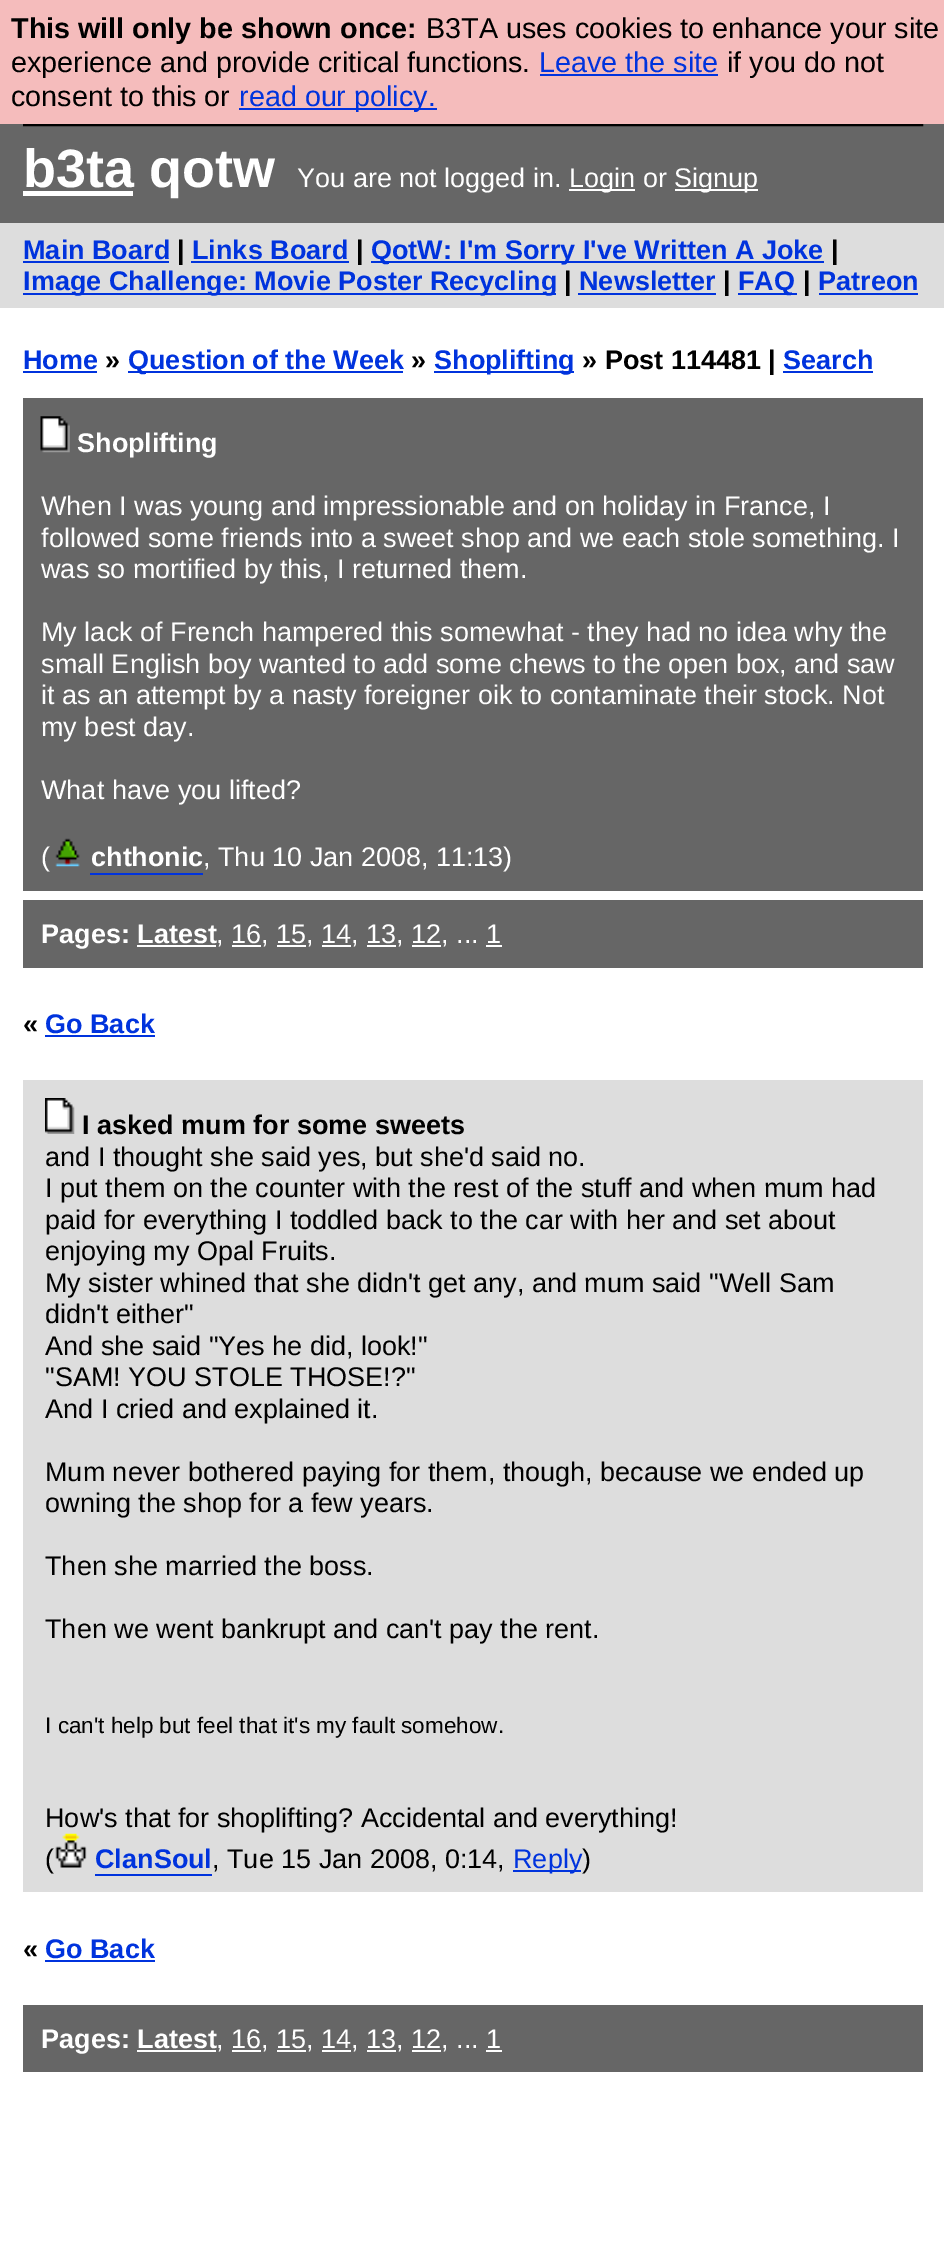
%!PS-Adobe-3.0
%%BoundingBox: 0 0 944 2264
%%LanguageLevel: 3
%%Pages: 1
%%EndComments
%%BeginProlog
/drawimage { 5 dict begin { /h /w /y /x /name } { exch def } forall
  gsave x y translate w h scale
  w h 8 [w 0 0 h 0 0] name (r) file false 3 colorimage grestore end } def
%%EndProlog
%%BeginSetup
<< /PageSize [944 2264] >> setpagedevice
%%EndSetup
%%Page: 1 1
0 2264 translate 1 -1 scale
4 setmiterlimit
1 setgray
0 0 944 2264 rectfill
0.4 setgray
0 124 944 99 rectfill
0 setgray
2 setlinewidth
24 24 898 101 rectstroke
0.961 0.737 0.737 setrgbcolor
0 0 944 124 rectfill
0 0.2 0.867 setrgbcolor
540 74 178 2 rectfill
239 108 198 2 rectfill
1 setgray
23 191 110 5 rectfill
569 189 66 2 rectfill
675 189 83 2 rectfill
0.867 setgray
0 223 944 85 rectfill
0 0.2 0.867 setrgbcolor
23 261 146 2 rectfill
191 261 158 2 rectfill
371 261 453 2 rectfill
23 293 533 2 rectfill
578 293 138 2 rectfill
738 293 59 2 rectfill
819 293 99 2 rectfill
23 371 74 2 rectfill
128 371 275 2 rectfill
434 371 140 2 rectfill
783 371 90 2 rectfill
0.4 setgray
23 398 900 493 rectfill
(images/1.raw) 40 416 30 37 drawimage
(images/2.raw) 55 838 25 29 drawimage
0 0.2 0.867 setrgbcolor
90 873 113 2 rectfill
0.4 setgray
23 900 900 68 rectfill
1 setgray
137 945 79 2 rectfill
232 945 29 2 rectfill
277 945 29 2 rectfill
322 945 29 2 rectfill
367 945 29 2 rectfill
412 945 29 2 rectfill
486 945 16 2 rectfill
0 0.2 0.867 setrgbcolor
45 1035 110 2 rectfill
0.867 setgray
23 1080 900 812 rectfill
(images/3.raw) 45 1098 30 36 drawimage
(images/4.raw) 55 1833 32 35 drawimage
0 0.2 0.867 setrgbcolor
95 1874 117 2 rectfill
513 1870 68 2 rectfill
45 1960 110 2 rectfill
0.4 setgray
23 2005 900 67 rectfill
1 setgray
137 2050 79 2 rectfill
232 2050 29 2 rectfill
277 2050 29 2 rectfill
322 2050 29 2 rectfill
367 2050 29 2 rectfill
412 2050 29 2 rectfill
486 2050 16 2 rectfill
/LiberationSans-Bold [28.75 0 0 -28.75 0 0] selectfont
0 setgray
11 38 moveto (This will only be shown once:) show
/LiberationSans-Regular [28.75 0 0 -28.75 0 0] selectfont
426 38 moveto (B3TA uses cookies to enhance your site) show
11 72 moveto (experience and provide critical functions.) show
0 0.2 0.867 setrgbcolor
539 72 moveto (Leave the site) show
0 setgray
727 72 moveto (if you do not) show
11 106 moveto (consent to this or) show
0 0.2 0.867 setrgbcolor
239 106 moveto (read our policy.) show
/LiberationSans-Bold [54 0 0 -54 0 0] selectfont
1 setgray
23 187 moveto (b3ta qotw) show
/LiberationSans-Regular [27 0 0 -27 0 0] selectfont
297 187 moveto (You are not logged in.) show
569 187 moveto (Login or) show
674 187 moveto (Signup) show
/LiberationSans-Bold [27 0 0 -27 0 0] selectfont
0 0.2 0.867 setrgbcolor
23 259 moveto (Main Board) show
0 setgray
177 259 moveto (|) show
0 0.2 0.867 setrgbcolor
192 259 moveto (Links Board) show
0 setgray
356 259 moveto (|) show
0 0.2 0.867 setrgbcolor
371 259 moveto (QotW: I'm Sorry I've Written A Joke) show
0 setgray
831 259 moveto (|) show
0 0.2 0.867 setrgbcolor
23 290 moveto (Image Challenge: Movie Poster Recycling) show
0 setgray
564 290 moveto (|) show
0 0.2 0.867 setrgbcolor
579 290 moveto (Newsletter) show
0 setgray
723 290 moveto (|) show
0 0.2 0.867 setrgbcolor
738 290 moveto (FAQ) show
0 setgray
803 290 moveto (|) show
0 0.2 0.867 setrgbcolor
818 290 moveto (Patreon) show
23 369 moveto (Home) show
0 setgray
105 369 moveto (») show
0 0.2 0.867 setrgbcolor
128 369 moveto (Question of the Week) show
0 setgray
411 369 moveto (») show
0 0.2 0.867 setrgbcolor
434 369 moveto (Shoplifting) show
0 setgray
582 369 moveto (» Post 114481 |) show
0 0.2 0.867 setrgbcolor
783 369 moveto (Search) show
1 setgray
77 452 moveto (Shoplifting) show
/LiberationSans-Regular [27 0 0 -27 0 0] selectfont
41 515 moveto (When I was young and impressionable and on holiday in France, I) show
41 547 moveto (followed some friends into a sweet shop and we each stole something. I) show
41 578 moveto (was so mortified by this, I returned them.) show
41 641 moveto (My lack of French hampered this somewhat - they had no idea why the) show
41 673 moveto (small English boy wanted to add some chews to the open box, and saw) show
41 704 moveto (it as an attempt by a nasty foreigner oik to contaminate their stock. Not) show
41 736 moveto (my best day.) show
41 799 moveto (What have you lifted?) show
41 866 moveto (\() show
/LiberationSans-Bold [27 0 0 -27 0 0] selectfont
91 866 moveto (chthonic) show
/LiberationSans-Regular [27 0 0 -27 0 0] selectfont
203 866 moveto (, Thu 10 Jan 2008, 11:13\)) show
/LiberationSans-Bold [27 0 0 -27 0 0] selectfont
41 943 moveto (Pages: Latest) show
/LiberationSans-Regular [27 0 0 -27 0 0] selectfont
216 943 moveto (, 16, 15, 14, 13, 12, ... 1) show
/LiberationSans-Bold [27 0 0 -27 0 0] selectfont
0 setgray
23 1033 moveto («) show
0 0.2 0.867 setrgbcolor
45 1033 moveto (Go Back) show
0 setgray
82 1134 moveto (I asked mum for some sweets) show
/LiberationSans-Regular [27 0 0 -27 0 0] selectfont
45 1166 moveto (and I thought she said yes, but she'd said no.) show
45 1197 moveto (I put them on the counter with the rest of the stuff and when mum had) show
45 1229 moveto (paid for everything I toddled back to the car with her and set about) show
45 1260 moveto (enjoying my Opal Fruits.) show
45 1292 moveto (My sister whined that she didn't get any, and mum said "Well Sam) show
45 1323 moveto (didn't either") show
45 1355 moveto (And she said "Yes he did, look!") show
45 1386 moveto ("SAM! YOU STOLE THOSE!?") show
45 1418 moveto (And I cried and explained it.) show
45 1481 moveto (Mum never bothered paying for them, though, because we ended up) show
45 1512 moveto (owning the shop for a few years.) show
45 1575 moveto (Then she married the boss.) show
45 1638 moveto (Then we went bankrupt and can't pay the rent.) show
/LiberationSans-Regular [22.5 0 0 -22.5 0 0] selectfont
45 1733 moveto (I can't help but feel that it's my fault somehow.) show
/LiberationSans-Regular [27 0 0 -27 0 0] selectfont
45 1827 moveto (How's that for shoplifting? Accidental and everything!) show
45 1868 moveto (\() show
/LiberationSans-Bold [27 0 0 -27 0 0] selectfont
0 0.2 0.867 setrgbcolor
95 1868 moveto (ClanSoul) show
/LiberationSans-Regular [27 0 0 -27 0 0] selectfont
0 setgray
212 1868 moveto (, Tue 15 Jan 2008, 0:14,) show
0 0.2 0.867 setrgbcolor
513 1868 moveto (Reply) show
0 setgray
582 1868 moveto (\)) show
/LiberationSans-Bold [27 0 0 -27 0 0] selectfont
23 1958 moveto («) show
0 0.2 0.867 setrgbcolor
45 1958 moveto (Go Back) show
1 setgray
41 2048 moveto (Pages: Latest) show
/LiberationSans-Regular [27 0 0 -27 0 0] selectfont
216 2048 moveto (, 16, 15, 14, 13, 12, ... 1) show
showpage
%%EOF
